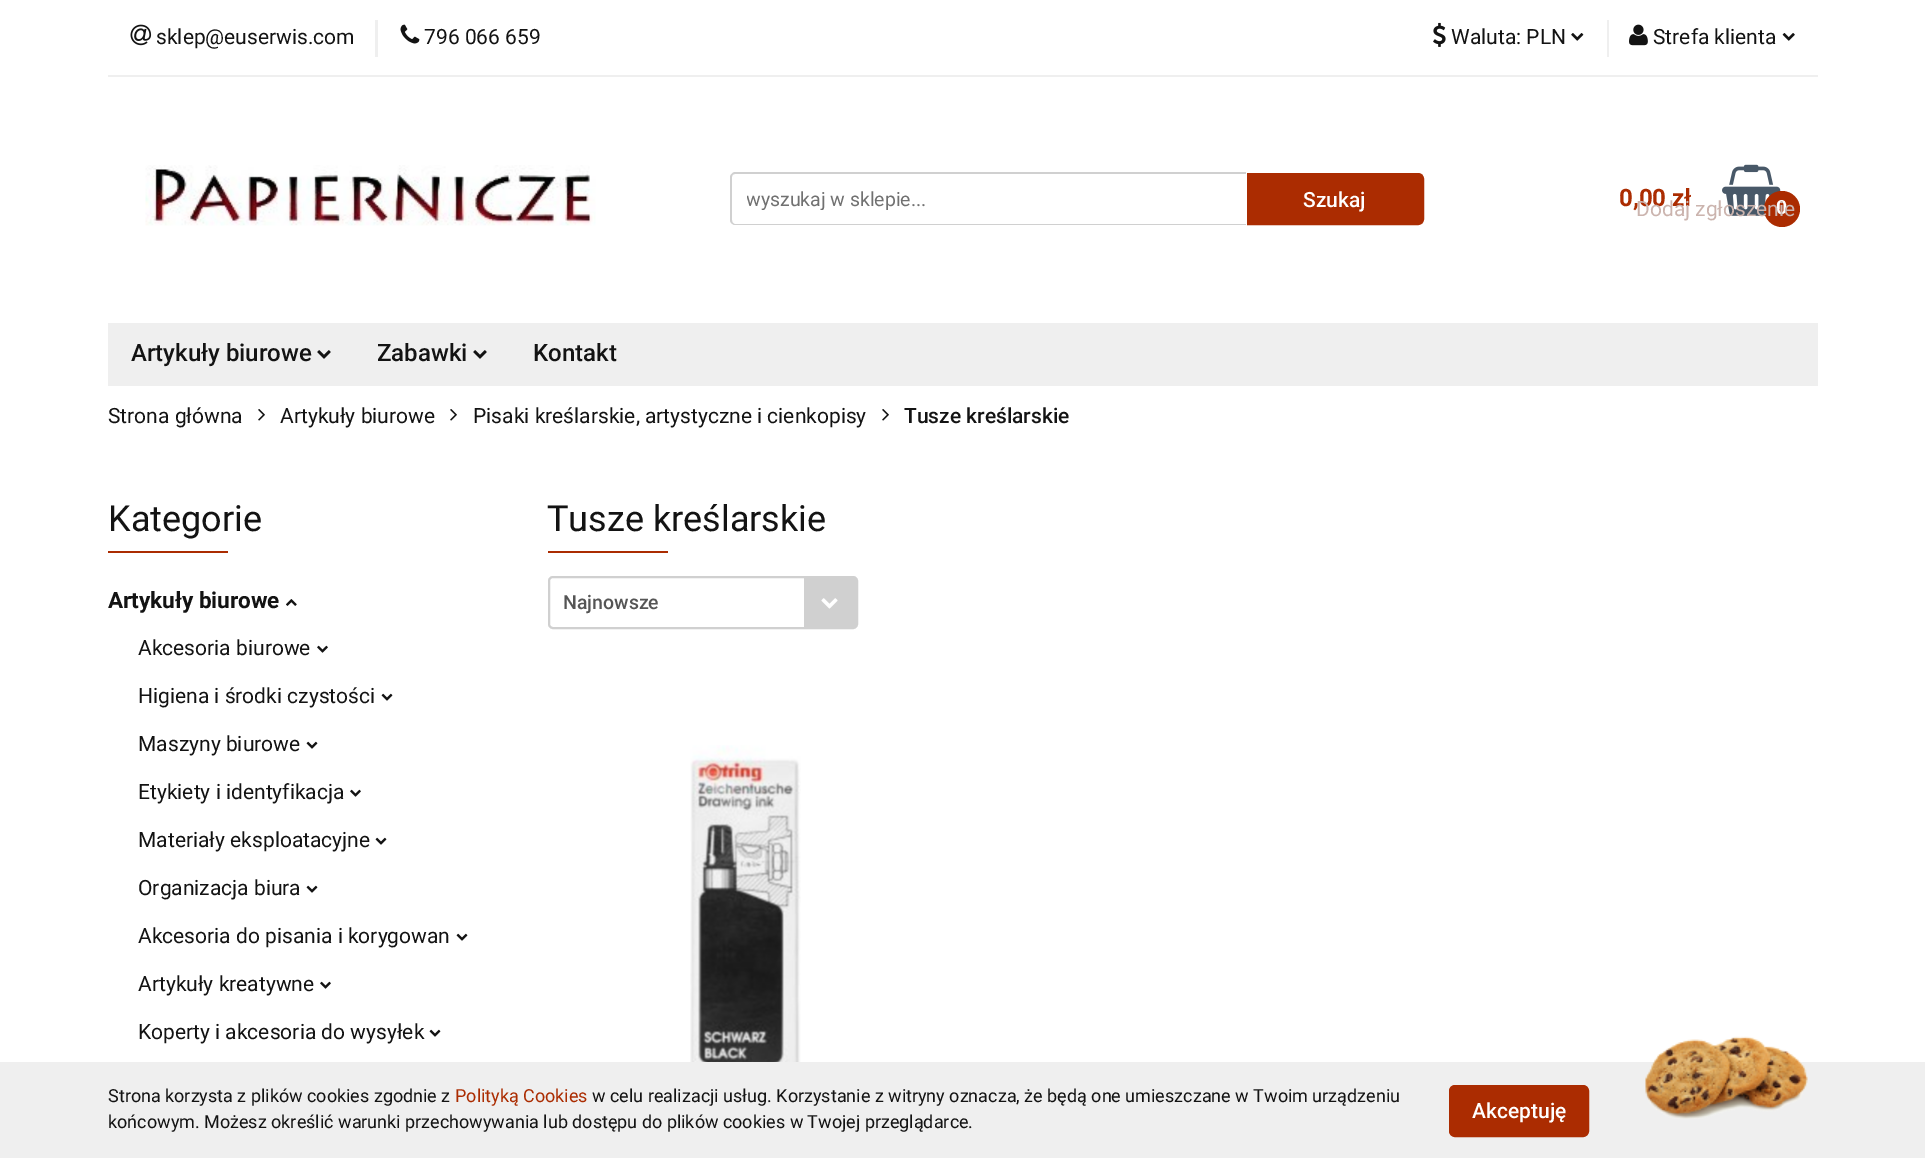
%!PS-Adobe-3.0
%%BoundingBox: 0 0 1925 1158
%%LanguageLevel: 3
%%Pages: 1
%%EndComments
%%BeginProlog
/rrect { 5 dict begin { /r /h /w /y /x } { exch def } forall
  x r add y moveto x w add y 2 copy h add r arct x w add y h add x 1 index r arct
  x y h add x y r arct x y 2 copy exch w add exch r arct closepath end } def
/drawimage { 5 dict begin { /h /w /y /x /name } { exch def } forall
  gsave x y translate w h scale
  w h 8 [w 0 0 h 0 0] name (r) file false 3 colorimage grestore end } def
%%EndProlog
%%BeginSetup
<< /PageSize [1925 1158] >> setpagedevice
%%EndSetup
%%Page: 1 1
0 1158 translate 1 -1 scale
4 setmiterlimit
1 setgray
0 0 1925 1158 rectfill
0.937 setgray
108 75 1710 2 rectfill
(images/1.raw) 130 24 22 22 drawimage
375 20 3 37 rectfill
(images/2.raw) 400 24 20 20 drawimage
(images/3.raw) 1433 22 13 25 drawimage
(images/4.raw) 1571 33 13 8 drawimage
1607 20 2 37 rectfill
(images/5.raw) 1629 24 19 22 drawimage
(images/6.raw) 1782 33 13 8 drawimage
(images/7.raw) 145 165 451 61 drawimage
0.816 setgray
newpath 735 172 moveto 1246 172 lineto 1246 225 lineto 735 225 lineto 733 225 730 223 730 220 curveto 730 177 lineto 730 175 733 172 735 172 curveto closepath 735 174 moveto 1246 174 lineto 1246 224 lineto 735 224 lineto 733 224 732 222 732 220 curveto 732 177 lineto 732 175 733 174 735 174 curveto closepath eofill
0.671 0.173 0.004 setrgbcolor
newpath 1249.5 175.5 moveto 1418 175.5 lineto 1420 175.5 1421.5 177 1421.5 179 curveto 1421.5 219 lineto 1421.5 221 1420 222.5 1418 222.5 curveto 1249.5 222.5 lineto closepath gsave fill grestore
5 setlinewidth
stroke
(images/8.raw) 1722 164 59 52 drawimage
newpath 1782 209 18 0 360 arc closepath fill
0.937 setgray
108 323 1710 63 rectfill
(images/9.raw) 317 350 14 9 drawimage
(images/9.raw) 473 350 14 9 drawimage
(images/10.raw) 258 409 7 12 drawimage
(images/10.raw) 450 409 7 12 drawimage
(images/10.raw) 882 409 7 12 drawimage
0.671 0.173 0.004 setrgbcolor
108 551 120 2 rectfill
(images/11.raw) 286 599 11 7 drawimage
(images/12.raw) 317 645 11 8 drawimage
(images/13.raw) 381 693 12 8 drawimage
(images/13.raw) 306 741 12 8 drawimage
(images/12.raw) 350 789 11 8 drawimage
(images/13.raw) 375 837 12 8 drawimage
(images/13.raw) 306 885 12 8 drawimage
(images/13.raw) 456 933 12 8 drawimage
(images/12.raw) 320 981 11 8 drawimage
(images/13.raw) 429 1029 12 8 drawimage
548 551 120 2 rectfill
0.816 setgray
2 setlinewidth
549 577 308 51 4 rrect stroke
newpath 804 578 moveto 854 578 lineto 855.5 578 857 579.5 857 581 curveto 857 624 lineto 857 625.5 855.5 627 854 627 curveto 804 627 lineto closepath fill
(images/14.raw) 821 598 17 11 drawimage
(images/15.raw) 690 745 111 317 drawimage
0.937 setgray
0 1062 1925 96 rectfill
0.671 0.173 0.004 setrgbcolor
1451.5 1087.5 135 47 3.5 rrect gsave fill grestore
5 setlinewidth
stroke
(images/16.raw) 1645 1036 163 83 drawimage
/Roboto-Regular [21 0 0 -21 0 0] selectfont
0.075 setgray
156 44 moveto (sklep@euserwis.com) show
424 44 moveto (796 066 659) show
1451 44 moveto (Waluta: PLN) show
1653 44 moveto (Strefa klienta) show
gsave
747 188 485 22 rectclip
/Roboto-Regular [19.5 0 0 -19.5 0 0] selectfont
0.443 setgray
746 206 moveto (wyszukaj w sklepie...) show
grestore
/Roboto-Medium [21 0 0 -21 0 0] selectfont
1 setgray
1303 207 moveto (Szukaj) show
/Roboto-Bold [24 0 0 -24 0 0] selectfont
0.671 0.173 0.004 setrgbcolor
1619 206 moveto (0,00 zł) show
/Roboto-Bold [19.5 0 0 -19.5 0 0] selectfont
1 setgray
1776 214 moveto (0) show
/Roboto-Regular [21 0 0 -21 0 0] selectfont
0.796 0.706 0.682 setrgbcolor
1636 216 moveto (Dodaj zgłoszenie) show
/Roboto-Medium [24 0 0 -24 0 0] selectfont
0.075 setgray
131 361 moveto (Artykuły biurowe) show
377 361 moveto (Zabawki) show
533 361 moveto (Kontakt) show
/Roboto-Regular [21 0 0 -21 0 0] selectfont
108 423 moveto (Strona główna) show
280 423 moveto (Artykuły biurowe) show
473 423 moveto (Pisaki kreślarskie, artystyczne i cienkopisy) show
/Roboto-Medium [21 0 0 -21 0 0] selectfont
904 423 moveto (Tusze kreślarskie) show
/Roboto-Regular [36 0 0 -36 0 0] selectfont
108 531 moveto (Kategorie) show
/Roboto-Bold [22.5 0 0 -22.5 0 0] selectfont
108 608 moveto (Artykuły biurowe) show
/Roboto-Regular [21 0 0 -21 0 0] selectfont
138 655 moveto (Akcesoria biurowe) show
138 703 moveto (Higiena i środki czystości) show
138 751 moveto (Maszyny biurowe) show
138 799 moveto (Etykiety i identyfikacja) show
138 847 moveto (Materiały eksploatacyjne) show
138 895 moveto (Organizacja biura) show
138 943 moveto (Akcesoria do pisania i korygowan) show
138 991 moveto (Artykuły kreatywne) show
138 1039 moveto (Koperty i akcesoria do wysyłek) show
/Roboto-Regular [36 0 0 -36 0 0] selectfont
547 531 moveto (Tusze kreślarskie) show
/Roboto-Medium [19.5 0 0 -19.5 0 0] selectfont
0.333 setgray
563 609 moveto (Najnowsze) show
/Roboto-Regular [18 0 0 -18 0 0] selectfont
0.075 setgray
108 1102 moveto (Strona korzysta z plików cookies zgodnie z) show
0.671 0.173 0.004 setrgbcolor
455 1102 moveto (Polityką Cookies) show
0.075 setgray
592 1102 moveto (w celu realizacji usług. Korzystanie z witryny oznacza, że będą one umieszczane w Twoim urządzeniu) show
108 1128 moveto (końcowym. Możesz określić warunki przechowywania lub dostępu do plików cookies w Twojej przeglądarce.) show
/Roboto-Medium [21 0 0 -21 0 0] selectfont
1 setgray
1472 1118 moveto (Akceptuję) show
showpage
%%EOF
